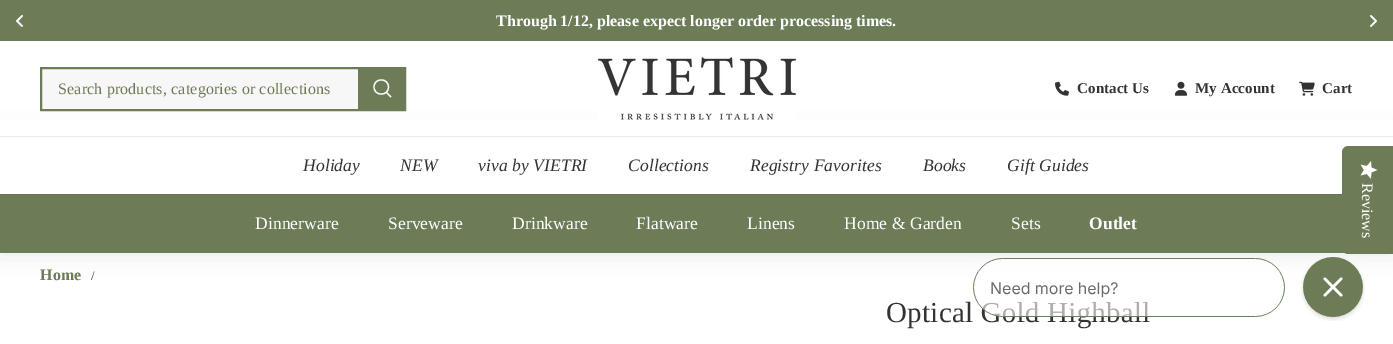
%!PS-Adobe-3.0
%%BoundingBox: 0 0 1393 344
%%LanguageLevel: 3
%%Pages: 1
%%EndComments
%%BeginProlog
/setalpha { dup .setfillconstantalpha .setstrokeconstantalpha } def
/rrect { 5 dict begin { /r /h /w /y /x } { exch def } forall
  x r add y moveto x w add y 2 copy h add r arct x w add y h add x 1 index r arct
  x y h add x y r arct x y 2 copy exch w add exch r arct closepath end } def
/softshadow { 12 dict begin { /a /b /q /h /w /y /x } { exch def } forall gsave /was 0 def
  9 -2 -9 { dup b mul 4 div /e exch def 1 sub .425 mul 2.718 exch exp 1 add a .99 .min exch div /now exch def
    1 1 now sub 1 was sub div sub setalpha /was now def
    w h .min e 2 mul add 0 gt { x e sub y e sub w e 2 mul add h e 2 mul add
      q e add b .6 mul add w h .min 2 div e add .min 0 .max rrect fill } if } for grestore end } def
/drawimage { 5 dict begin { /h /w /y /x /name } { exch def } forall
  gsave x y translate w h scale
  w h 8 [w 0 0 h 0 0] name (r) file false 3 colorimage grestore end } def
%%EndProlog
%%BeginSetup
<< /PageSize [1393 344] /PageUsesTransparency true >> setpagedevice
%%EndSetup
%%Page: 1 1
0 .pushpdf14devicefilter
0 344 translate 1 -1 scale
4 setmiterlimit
1 setgray
0 0 1393 344 rectfill
0.42 0.486 0.341 setrgbcolor
0 0 1393 41 rectfill
(images/1.raw) 16 15 7 12 drawimage
(images/2.raw) 1370 15 7 12 drawimage
0 setgray
0 136 1393 117 0 12.5 0.1 softshadow
1 setgray
0 120 1393 16 rectfill
0.969 setgray
42 69 316 40 rectfill
0.42 0.486 0.341 setrgbcolor
2 setlinewidth
41 68 364 42 rectstroke
358 69 46 40 rectfill
1 setgray
1.2 setlinewidth
1 setlinejoin
newpath 388.5 87 moveto 388.5 96.5 374 96.5 374 87 curveto 374 77.5 388.5 77.5 388.5 87 curveto 391 97 moveto 386.5 92.5 lineto stroke
(images/3.raw) 598 57 198 63 drawimage
(images/4.raw) 1055 81 14 15 drawimage
(images/5.raw) 1174 81 14 15 drawimage
(images/6.raw) 1299 81 16 15 drawimage
0 137 1393 57 rectfill
0.922 setgray
0 136 1393 1 rectfill
0.42 0.486 0.341 setrgbcolor
0 195 1345 58 rectfill
0.396 0.459 0.325 setrgbcolor
0 194 1342 1 rectfill
0.42 0.486 0.341 setrgbcolor
newpath 1393 146 moveto 1393 254 lineto 1348 254 lineto 1345 254 1342 251 1342 248 curveto 1342 152 lineto 1342 149 1345 146 1348 146 curveto closepath fill
(images/7.raw) 1360 161 18 18 drawimage
/LiberationSerif-Bold [16 0 0 -16 0 0] selectfont
1 setgray
496 26 moveto (Through 1/12, please expect longer order processing times.) show
/LiberationSerif-Regular [16 0 0 -16 0 0] selectfont
0.42 0.486 0.341 setrgbcolor
58 94 moveto 0.15 0 (Search products, categories or collections) ashow
/LiberationSerif-Bold [15 0 0 -15 0 0] selectfont
0.2 setgray
1077 93 moveto 0.1 0 (Contact Us) ashow
1195 93 moveto 0.1 0 (My Account) ashow
1322 93 moveto 0.1 0 (Cart) ashow
/LiberationSerif-Italic [17.5 0 0 -17.5 0 0] selectfont
303 171 moveto 0.1 0 (Holiday) ashow
400 171 moveto 0.1 0 (NEW) ashow
478 171 moveto 0.1 0 (viva by VIETRI) ashow
628 171 moveto 0.1 0 (Collections) ashow
750 171 moveto 0.1 0 (Registry Favorites) ashow
923 171 moveto 0.1 0 (Books) ashow
1007 171 moveto 0.1 0 (Gift Guides) ashow
/LiberationSerif-Regular [17.5 0 0 -17.5 0 0] selectfont
1 setgray
255 229 moveto 0.1 0 (Dinnerware) ashow
388 229 moveto 0.1 0 (Serveware) ashow
512 229 moveto 0.1 0 (Drinkware) ashow
636 229 moveto 0.1 0 (Flatware) ashow
747 229 moveto 0.1 0 (Linens) ashow
844 229 moveto 0.1 0 (Home & Garden) ashow
1011 229 moveto 0.1 0 (Sets) ashow
/LiberationSerif-Bold [17.5 0 0 -17.5 0 0] selectfont
1089 229 moveto 0.1 0 (Outlet) ashow
/LiberationSerif-Bold [16 0 0 -16 0 0] selectfont
0.42 0.486 0.341 setrgbcolor
40 280 moveto 0.1 0 (Home) ashow
/LiberationSerif-Regular [13 0 0 -13 0 0] selectfont
0.2 setgray
91 280 moveto 0.1 0 (/) ashow
/LiberationSerif-Regular [29 0 0 -29 0 0] selectfont
886 322 moveto 0.25 0 (Optical Gold Highball) ashow
/LiberationSerif-Regular [16 0 0 -16 0 0] selectfont
1 setgray
gsave 1362 183 translate 90 rotate 0 0 moveto (Reviews) show grestore
(images/8.raw) 973 257 392 64 drawimage
.poppdf14devicefilter showpage
%%EOF
